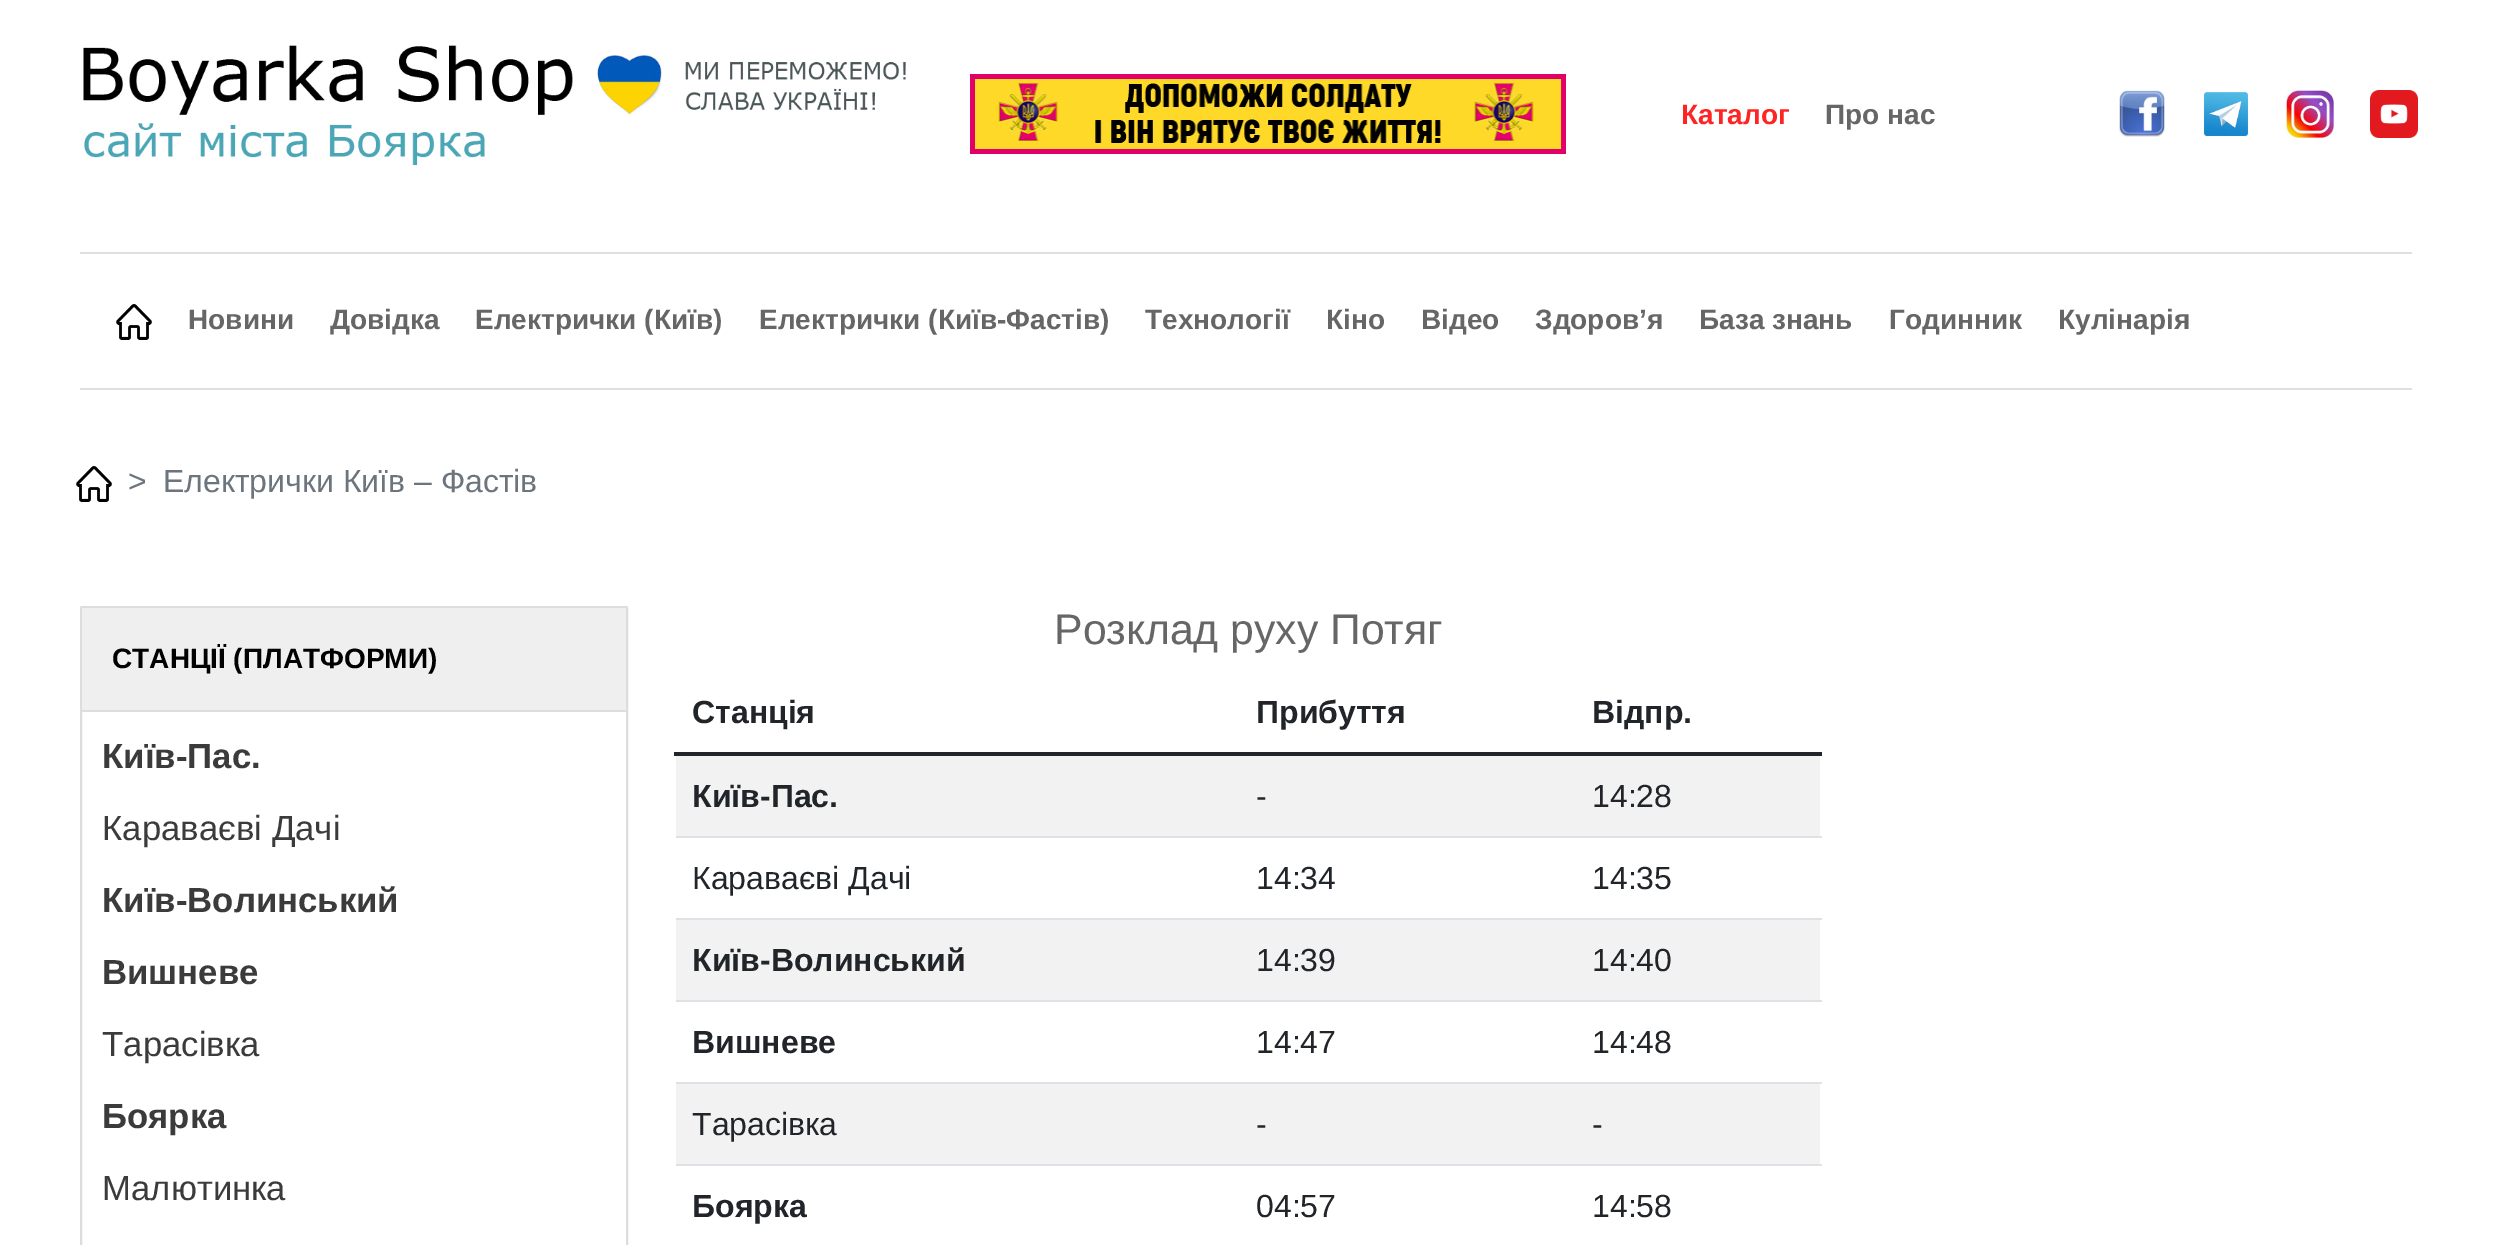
%!PS-Adobe-3.0
%%BoundingBox: 0 0 2495 1245
%%LanguageLevel: 3
%%Pages: 1
%%EndComments
%%BeginProlog
/rrect { 5 dict begin { /r /h /w /y /x } { exch def } forall
  x r add y moveto x w add y 2 copy h add r arct x w add y h add x 1 index r arct
  x y h add x y r arct x y 2 copy exch w add exch r arct closepath end } def
/drawimage { 5 dict begin { /h /w /y /x /name } { exch def } forall
  gsave x y translate w h scale
  w h 8 [w 0 0 h 0 0] name (r) file false 3 colorimage grestore end } def
%%EndProlog
%%BeginSetup
<< /PageSize [2495 1245] >> setpagedevice
%%EndSetup
%%Page: 1 1
0 1245 translate 1 -1 scale
4 setmiterlimit
1 setgray
0 0 2495 1245 rectfill
(images/1.raw) 83 45 823 120 drawimage
(images/2.raw) 970 74 596 80 drawimage
(images/3.raw) 2119 90 46 47 drawimage
(images/4.raw) 2204 92 44 44 drawimage
(images/5.raw) 2286 90 48 48 drawimage
(images/6.raw) 2370 90 48 48 drawimage
0.875 setgray
80 252 2332 2 rectfill
80 388 2332 2 rectfill
(images/7.raw) 116 304 36 36 drawimage
(images/8.raw) 76 466 36 36 drawimage
0.867 setgray
2 setlinewidth
81 607 546 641 1 rrect stroke
0.937 setgray
82 608 544 102 rectfill
0.867 setgray
82 710 544 2 rectfill
0.129 0.145 0.161 setrgbcolor
674 752 1148 4 rectfill
0.949 setgray
676 756 1144 80 rectfill
0.871 0.886 0.902 setrgbcolor
676 836 1146 2 rectfill
676 918 1146 2 rectfill
0.949 setgray
676 920 1144 80 rectfill
0.871 0.886 0.902 setrgbcolor
676 1000 1146 2 rectfill
676 1082 1146 2 rectfill
0.949 setgray
676 1084 1144 80 rectfill
0.871 0.886 0.902 setrgbcolor
676 1164 1146 2 rectfill
/LiberationSans-Bold [28 0 0 -28 0 0] selectfont
1 0.141 0.141 setrgbcolor
1681 124 moveto (Каталог) show
0.4 setgray
1825 124 moveto (Про нас) show
188 329 moveto (Новини) show
330 329 moveto (Довідка) show
475 329 moveto (Електрички \(Київ\)) show
759 329 moveto (Електрички \(Київ-Фастів\)) show
1145 329 moveto (Технології) show
1326 329 moveto (Кіно) show
1421 329 moveto (Відео) show
1535 329 moveto (Здоров’я) show
1699 329 moveto (База знань) show
1889 329 moveto (Годинник) show
2058 329 moveto (Кулінарія) show
/LiberationSans-Regular [32 0 0 -32 0 0] selectfont
0.424 0.459 0.49 setrgbcolor
128 492 moveto (>) show
163 492 moveto (Електрички Київ – Фастів) show
/LiberationSans-Bold [28 0 0 -28 0 0] selectfont
0 setgray
112 668 moveto (СТАНЦІЇ \(ПЛАТФОРМИ\)) show
/LiberationSans-Bold [34.75 0 0 -34.75 0 0] selectfont
0.231 setgray
102 768 moveto (Київ-Пас.) show
/LiberationSans-Regular [34.75 0 0 -34.75 0 0] selectfont
102 840 moveto (Караваєві Дачі) show
/LiberationSans-Bold [34.75 0 0 -34.75 0 0] selectfont
102 912 moveto (Київ-Волинський) show
102 984 moveto (Вишневе) show
/LiberationSans-Regular [34.75 0 0 -34.75 0 0] selectfont
102 1056 moveto (Тарасівка) show
/LiberationSans-Bold [34.75 0 0 -34.75 0 0] selectfont
102 1128 moveto (Боярка) show
/LiberationSans-Regular [34.75 0 0 -34.75 0 0] selectfont
102 1200 moveto (Малютинка) show
/LiberationSans-Regular [42.75 0 0 -42.75 0 0] selectfont
0.4 setgray
1054 644 moveto (Розклад руху Потяг) show
/LiberationSans-Bold [32 0 0 -32 0 0] selectfont
0.129 0.145 0.161 setrgbcolor
692 723 moveto (Станція) show
1256 723 moveto (Прибуття) show
1592 723 moveto (Відпр.) show
692 807 moveto (Київ-Пас.) show
/LiberationSans-Regular [32 0 0 -32 0 0] selectfont
1256 807 moveto (-) show
1592 807 moveto (14:28) show
692 889 moveto (Караваєві Дачі) show
1256 889 moveto (14:34) show
1592 889 moveto (14:35) show
/LiberationSans-Bold [32 0 0 -32 0 0] selectfont
692 971 moveto (Київ-Волинський) show
/LiberationSans-Regular [32 0 0 -32 0 0] selectfont
1256 971 moveto (14:39) show
1592 971 moveto (14:40) show
/LiberationSans-Bold [32 0 0 -32 0 0] selectfont
692 1053 moveto (Вишневе) show
/LiberationSans-Regular [32 0 0 -32 0 0] selectfont
1256 1053 moveto (14:47) show
1592 1053 moveto (14:48) show
692 1135 moveto (Тарасівка) show
1256 1135 moveto (-) show
1592 1135 moveto (-) show
/LiberationSans-Bold [32 0 0 -32 0 0] selectfont
692 1217 moveto (Боярка) show
/LiberationSans-Regular [32 0 0 -32 0 0] selectfont
1256 1217 moveto (04:57) show
1592 1217 moveto (14:58) show
showpage
%%EOF
